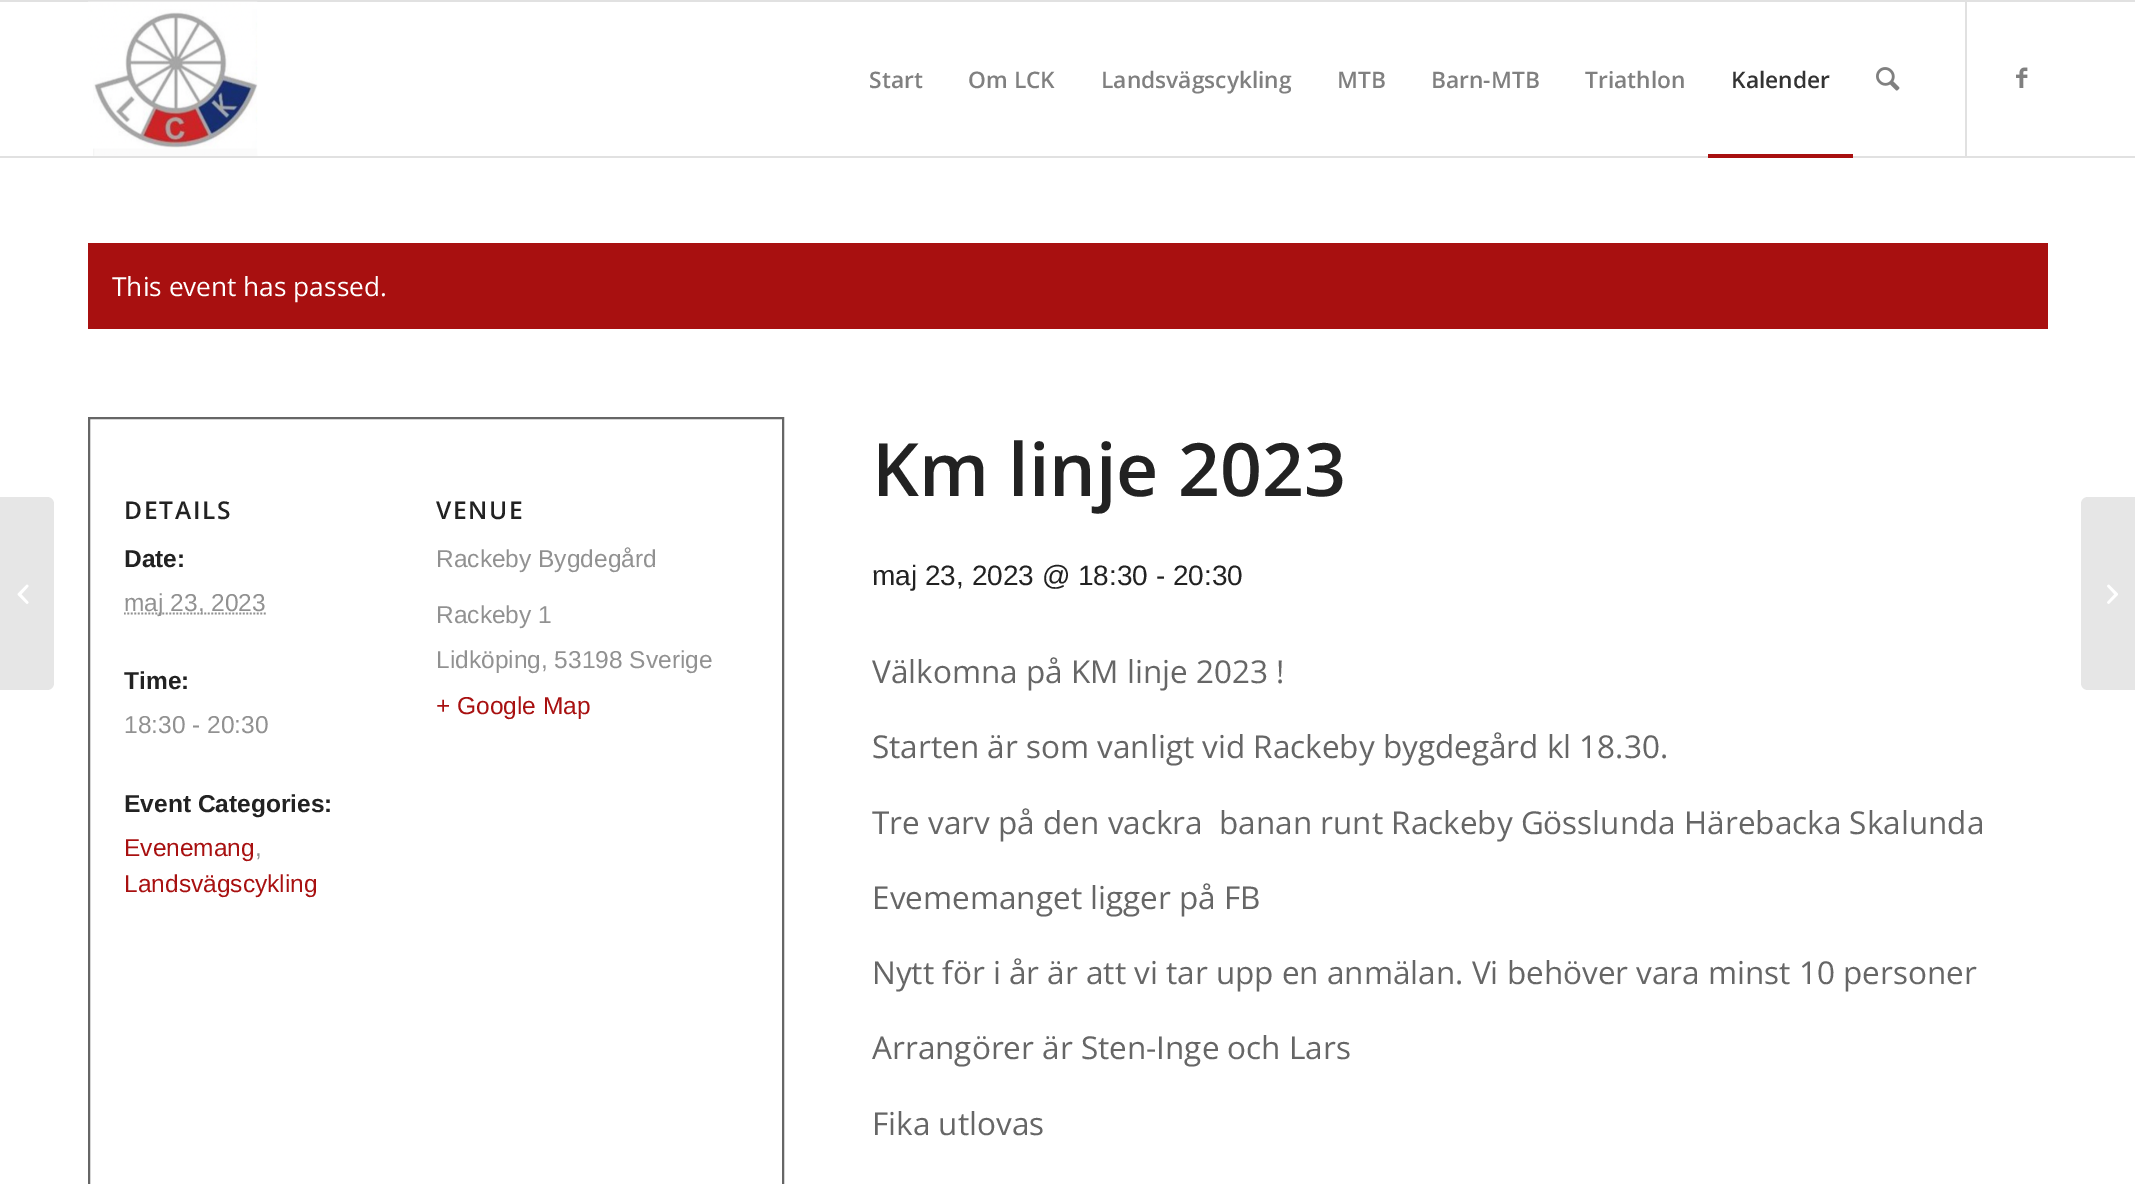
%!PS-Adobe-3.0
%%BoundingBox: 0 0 2135 1184
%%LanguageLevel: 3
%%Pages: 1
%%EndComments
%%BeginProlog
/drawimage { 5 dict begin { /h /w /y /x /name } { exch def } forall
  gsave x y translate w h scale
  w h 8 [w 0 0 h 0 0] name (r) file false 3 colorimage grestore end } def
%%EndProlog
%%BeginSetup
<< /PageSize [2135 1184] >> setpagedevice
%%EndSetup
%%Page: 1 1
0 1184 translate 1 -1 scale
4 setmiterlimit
1 setgray
0 0 2135 1184 rectfill
0.882 setgray
0 0 2135 2 rectfill
0 156 2135 2 rectfill
(images/1.raw) 88 1 170 155 drawimage
1965 2 2 154 rectfill
0.659 0.063 0.063 setrgbcolor
1708 154 145 4 rectfill
(images/2.raw) 1876 67 24 24 drawimage
(images/3.raw) 2016 67 12 21 drawimage
0.902 setgray
newpath 0 497 moveto 47 497 lineto 51 497 54 500 54 504 curveto 54 683 lineto 54 687 51 690 47 690 curveto 0 690 lineto closepath fill
(images/4.raw) 17 584 12 20 drawimage
0.659 0.063 0.063 setrgbcolor
88 243 1960 86 rectfill
0.4 setgray
2 setlinewidth
89 418 694 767 rectstroke
0.569 setgray
1.8 setlinewidth
[1.75 1.75] 0 setdash
newpath 124 613.5 moveto 266 613.5 lineto stroke
0.902 setgray
newpath 2088 497 moveto 2135 497 lineto 2135 690 lineto 2088 690 lineto 2084 690 2081 687 2081 683 curveto 2081 504 lineto 2081 500 2084 497 2088 497 curveto closepath fill
(images/5.raw) 2107 584 11 20 drawimage
/OpenSans-SemiBold [22.75 0 0 -22.75 0 0] selectfont
0.502 setgray
869 88 moveto (Start) show
968 88 moveto (Om LCK) show
1101 88 moveto (Landsvägscykling) show
1337 88 moveto (MTB) show
1431 88 moveto (Barn-MTB) show
1585 88 moveto (Triathlon) show
0.2 setgray
1731 88 moveto (Kalender) show
/OpenSans-Regular [26.25 0 0 -26.25 0 0] selectfont
1 setgray
112 296 moveto (This event has passed.) show
/OpenSans-SemiBold [24.5 0 0 -24.5 0 0] selectfont
0.133 setgray
124 519 moveto 1.75 0 (DETAILS) ashow
/LiberationSans-Bold [24.5 0 0 -24.5 0 0] selectfont
124 567 moveto (Date:) show
/LiberationSans-Regular [24.5 0 0 -24.5 0 0] selectfont
0.569 setgray
124 611 moveto (maj 23, 2023) show
/LiberationSans-Bold [24.5 0 0 -24.5 0 0] selectfont
0.133 setgray
124 689 moveto (Time:) show
/LiberationSans-Regular [24.5 0 0 -24.5 0 0] selectfont
0.569 setgray
124 733 moveto (18:30 - 20:30) show
/LiberationSans-Bold [24.5 0 0 -24.5 0 0] selectfont
0.133 setgray
124 812 moveto (Event Categories:) show
/LiberationSans-Regular [24.5 0 0 -24.5 0 0] selectfont
0.659 0.063 0.063 setrgbcolor
124 856 moveto (Evenemang) show
0.569 setgray
255 856 moveto (,) show
0.659 0.063 0.063 setrgbcolor
124 892 moveto (Landsvägscykling) show
/OpenSans-SemiBold [24.5 0 0 -24.5 0 0] selectfont
0.133 setgray
436 519 moveto 1.75 0 (VENUE) ashow
/LiberationSans-Regular [24.5 0 0 -24.5 0 0] selectfont
0.569 setgray
436 567 moveto (Rackeby Bygdegård) show
436 623 moveto (Rackeby 1) show
436 668 moveto (Lidköping, 53198 Sverige) show
0.659 0.063 0.063 setrgbcolor
436 714 moveto (+ Google Map) show
/OpenSans-SemiBold [73.5 0 0 -73.5 0 0] selectfont
0.133 setgray
872 496 moveto (Km linje 2023) show
/LiberationSans-Regular [28 0 0 -28 0 0] selectfont
872 585 moveto (maj 23, 2023 @ 18:30 - 20:30) show
/OpenSans-Regular [31.5 0 0 -31.5 0 0] selectfont
0.4 setgray
872 683 moveto (Välkomna på KM linje 2023 !) show
872 758 moveto (Starten är som vanligt vid Rackeby bygdegård kl 18.30.) show
872 834 moveto (Tre varv på den vackra  banan runt Rackeby Gösslunda Härebacka Skalunda) show
872 909 moveto (Evememanget ligger på FB) show
872 984 moveto (Nytt för i år är att vi tar upp en anmälan. Vi behöver vara minst 10 personer) show
872 1059 moveto (Arrangörer är Sten-Inge och Lars) show
872 1135 moveto (Fika utlovas) show
showpage
%%EOF
